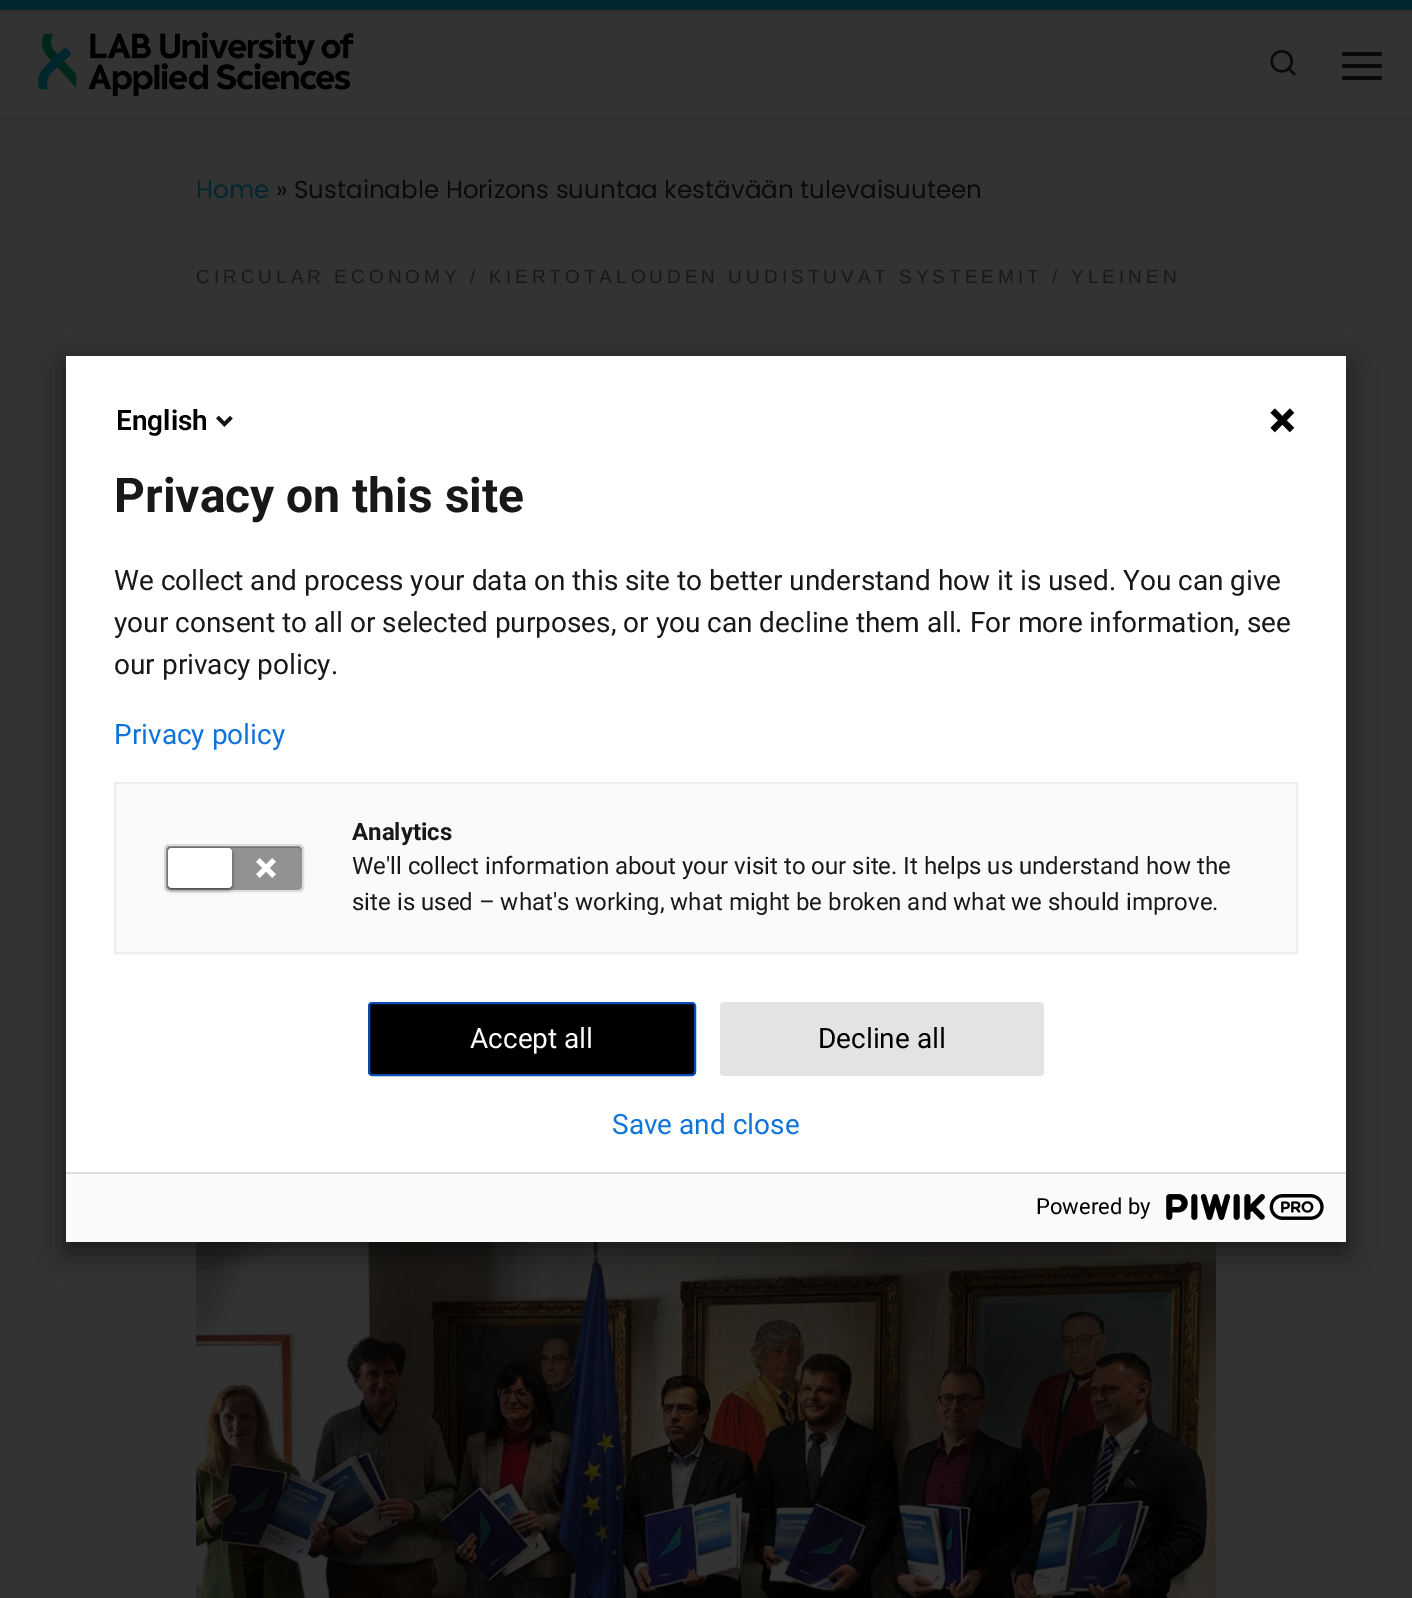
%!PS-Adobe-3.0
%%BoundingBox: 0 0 1412 1598
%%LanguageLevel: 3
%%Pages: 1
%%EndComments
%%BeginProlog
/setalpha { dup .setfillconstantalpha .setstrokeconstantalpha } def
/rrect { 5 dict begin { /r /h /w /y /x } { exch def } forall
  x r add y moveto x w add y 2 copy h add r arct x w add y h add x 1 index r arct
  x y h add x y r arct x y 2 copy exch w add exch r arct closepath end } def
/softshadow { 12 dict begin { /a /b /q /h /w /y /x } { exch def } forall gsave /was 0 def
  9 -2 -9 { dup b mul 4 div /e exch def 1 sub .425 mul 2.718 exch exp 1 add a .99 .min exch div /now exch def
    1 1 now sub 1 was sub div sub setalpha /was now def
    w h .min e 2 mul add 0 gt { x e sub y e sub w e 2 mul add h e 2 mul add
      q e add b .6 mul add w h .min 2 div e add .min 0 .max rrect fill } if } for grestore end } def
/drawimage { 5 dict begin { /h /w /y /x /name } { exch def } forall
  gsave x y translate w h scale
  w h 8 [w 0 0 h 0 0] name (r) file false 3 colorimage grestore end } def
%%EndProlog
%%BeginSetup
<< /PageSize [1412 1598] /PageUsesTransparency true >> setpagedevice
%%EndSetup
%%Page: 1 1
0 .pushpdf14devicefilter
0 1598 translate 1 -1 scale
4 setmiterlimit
0.2 setgray
0 0 1412 1598 rectfill
0 0.153 0.18 setrgbcolor
0 0 1412 10 rectfill
0.184 setgray
0 10 1412 2 rectfill
0.188 setgray
0 116 1412 4 rectfill
(images/1.raw) 38 32 316 64 drawimage
(images/2.raw) 1270 49 26 27 drawimage
0.039 setgray
1342 52 40 4 2 rrect fill
1342 64 40 4 2 rrect fill
1342 76 40 4 2 rrect fill
(images/3.raw) 196 1242 1020 356 drawimage
0 setgray
66 366 1280 886 0 15 0.5 softshadow
1 setgray
66 356 1280 816 rectfill
(images/4.raw) 216 415 17 12 drawimage
(images/5.raw) 1270 408 25 25 drawimage
0.98 setgray
newpath 115 783 moveto 1297 783 lineto 1297 953 lineto 115 953 lineto closepath gsave fill grestore
0.933 setgray
2 setlinewidth
stroke
0.573 setgray
164 844 140 48 6 rrect fill
0.459 setgray
newpath 170 848 moveto 298 848 lineto 300 848 302 850 302 852 curveto 302 850 lineto 302 848 300 846 298 846 curveto 170 846 lineto 168 846 166 848 166 850 curveto 166 852 lineto 166 850 168 848 170 848 curveto closepath fill
0.867 setgray
165 845 138 46 5 rrect stroke
0 setgray
168 850 64 40 4 2 0.5 softshadow
1 setgray
168 848 64 40 4 rrect fill
(images/6.raw) 256 858 20 20 drawimage
0 setgray
369 1003 326 72 3 rrect gsave fill grestore
0.043 0.294 0.702 setrgbcolor
stroke
0.89 setgray
720 1002 324 74 4 rrect fill
0.98 setgray
66 1174 1280 68 rectfill
0.867 setgray
66 1172 1280 2 rectfill
(images/7.raw) 1166 1194 158 26 drawimage
/Poppins-Regular [24.6 0 0 -24.6 0 0] selectfont
0 0.153 0.18 setrgbcolor
196 198 moveto (Home) show
0.039 setgray
276 198 moveto (») show
294 198 moveto (Sustainable Horizons suuntaa kestävään tulevaisuuteen) show
/LiberationSans-Regular [19 0 0 -19 0 0] selectfont
0.094 setgray
196 283 moveto 4 0 (CIRCULAR ECONOMY) ashow
470 283 moveto 4 0 (/) ashow
489 283 moveto 4 0 (KIERTOTALOUDEN UUDISTUVAT SYSTEEMIT /) ashow
1071 283 moveto 4 0 (YLEINEN) ashow
/Roboto-SemiBold [28 0 0 -28 0 0] selectfont
0 setgray
116 430 moveto (English) show
/Roboto-Bold [48 0 0 -48 0 0] selectfont
0.094 setgray
114 512 moveto (Privacy on this site) show
/Roboto-Regular [28 0 0 -28 0 0] selectfont
114 590 moveto (We collect and process your data on this site to better understand how it is used. You can give) show
114 632 moveto (your consent to all or selected purposes, or you can decline them all. For more information, see) show
114 674 moveto (our privacy policy.) show
0.059 0.451 0.863 setrgbcolor
114 744 moveto (Privacy policy) show
/Roboto-Bold [24 0 0 -24 0 0] selectfont
0.094 setgray
352 840 moveto (Analytics) show
/Roboto-Regular [24 0 0 -24 0 0] selectfont
352 874 moveto (We'll collect information about your visit to our site. It helps us understand how the) show
352 910 moveto (site is used – what's working, what might be broken and what we should improve.) show
/Roboto-Regular [28 0 0 -28 0 0] selectfont
1 setgray
470 1048 moveto (Accept all) show
0 setgray
818 1048 moveto (Decline all) show
0.059 0.451 0.863 setrgbcolor
612 1134 moveto (Save and close) show
/Roboto-Regular [22 0 0 -22 0 0] selectfont
0 setgray
1036 1214 moveto (Powered by) show
.poppdf14devicefilter showpage
%%EOF
